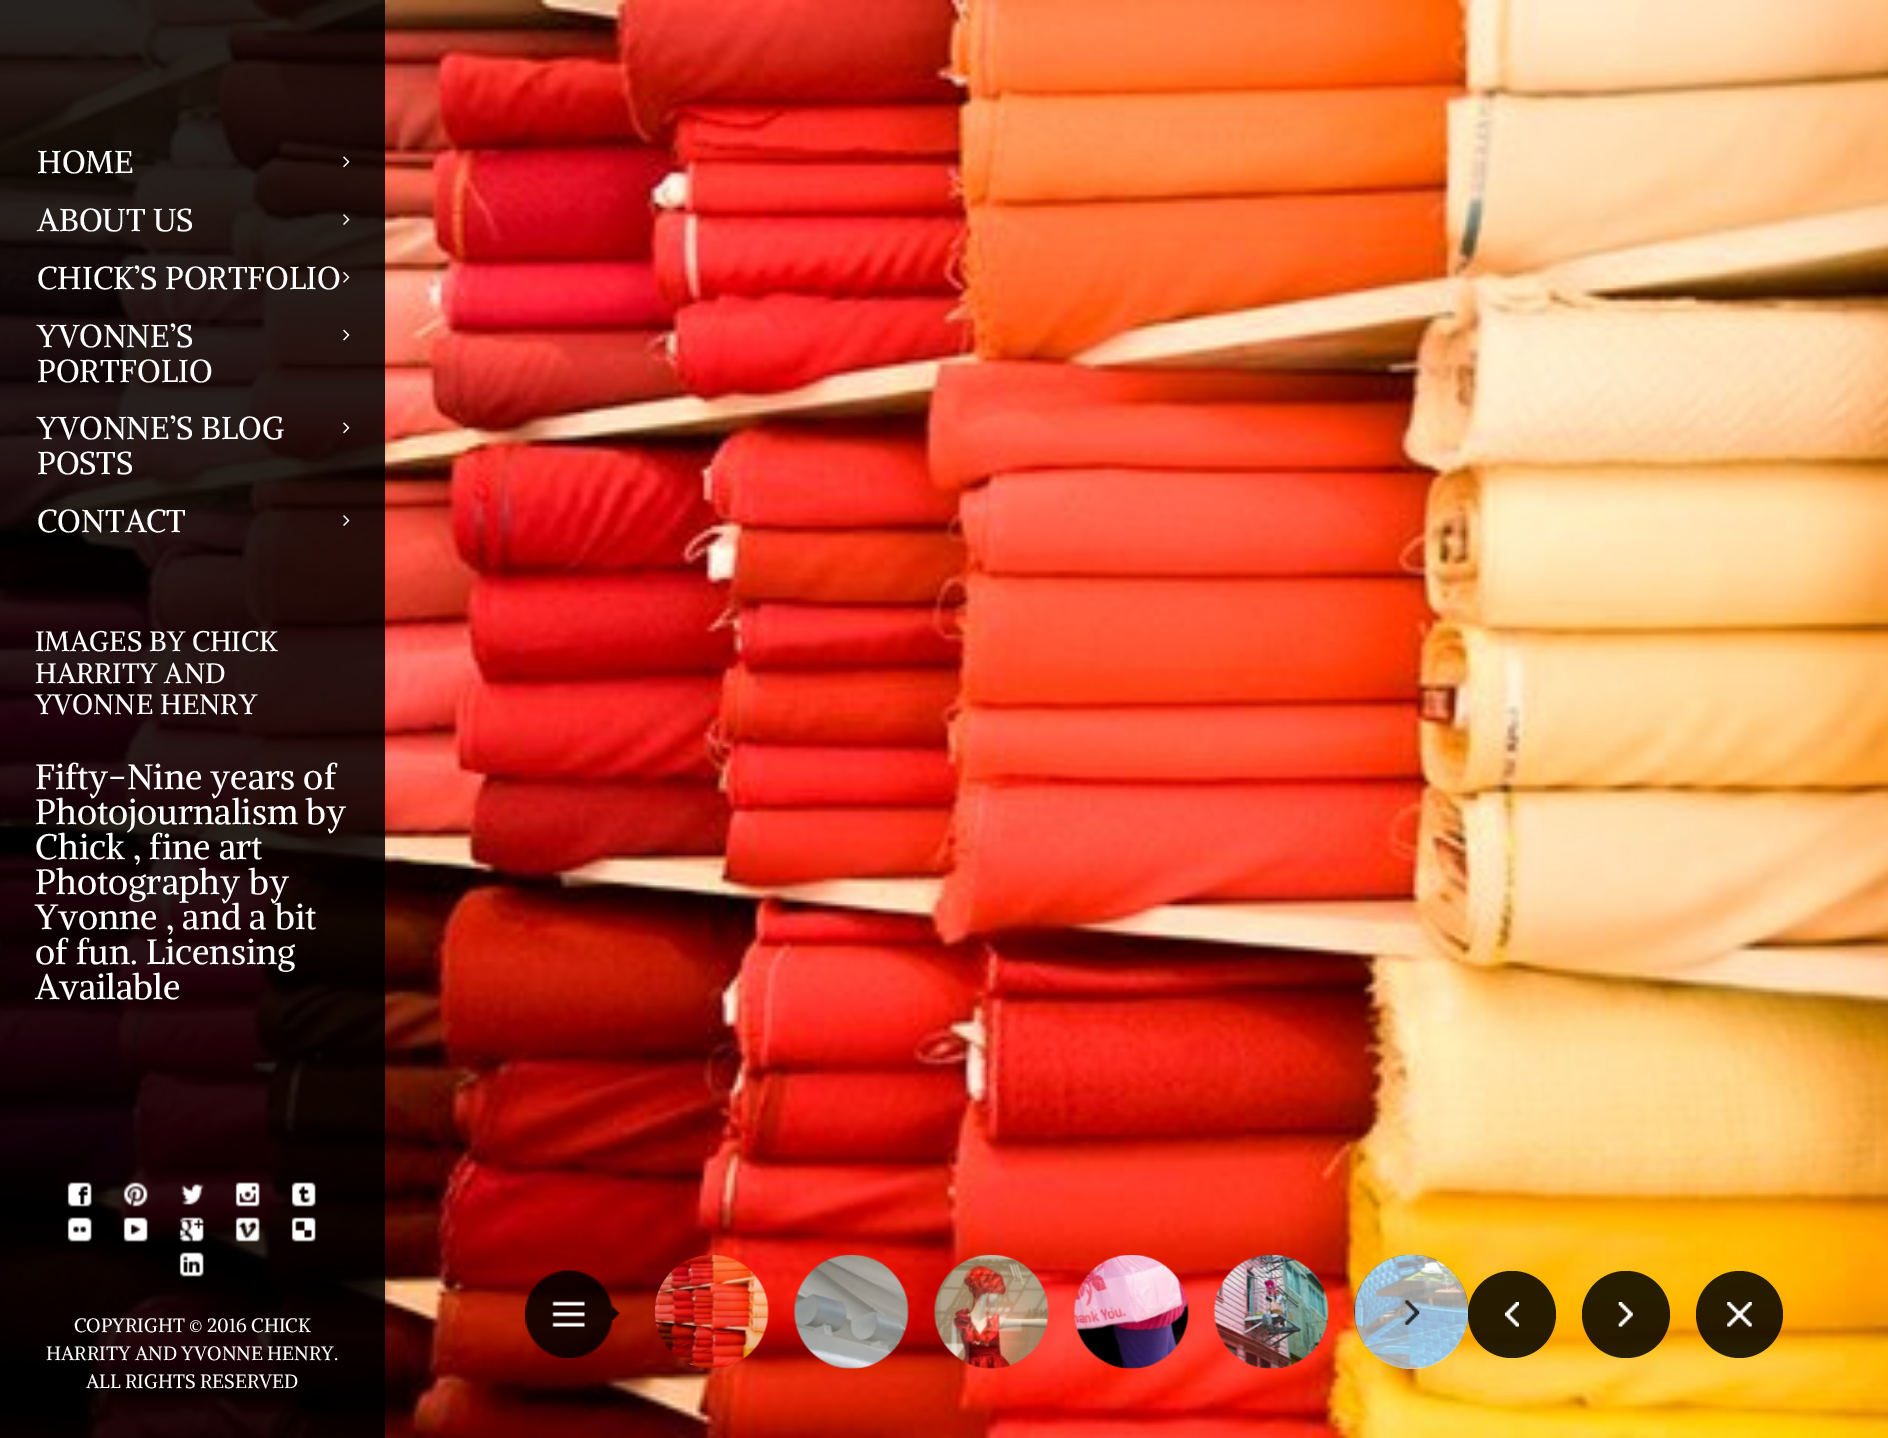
%!PS-Adobe-3.0
%%BoundingBox: 0 0 1888 1438
%%LanguageLevel: 3
%%Pages: 1
%%EndComments
%%BeginProlog
/setalpha { dup .setfillconstantalpha .setstrokeconstantalpha } def
/rrect { 5 dict begin { /r /h /w /y /x } { exch def } forall
  x r add y moveto x w add y 2 copy h add r arct x w add y h add x 1 index r arct
  x y h add x y r arct x y 2 copy exch w add exch r arct closepath end } def
/drawimage { 5 dict begin { /h /w /y /x /name } { exch def } forall
  gsave x y translate w h scale
  w h 8 [w 0 0 h 0 0] name (r) file false 3 colorimage grestore end } def
%%EndProlog
%%BeginSetup
<< /PageSize [1888 1438] /PageUsesTransparency true >> setpagedevice
%%EndSetup
%%Page: 1 1
0 .pushpdf14devicefilter
0 1438 translate 1 -1 scale
4 setmiterlimit
1 setgray
0 0 1888 1438 rectfill
(images/1.raw) 0 0 1888 1438 drawimage
0.85 setalpha
0 setgray
0 0 385 1438 rectfill
1 setalpha
(images/2.raw) 343 156 7 12 drawimage
(images/3.raw) 343 214 7 11 drawimage
(images/4.raw) 343 272 7 11 drawimage
(images/5.raw) 343 329 7 12 drawimage
(images/6.raw) 343 422 7 12 drawimage
(images/7.raw) 343 515 7 11 drawimage
(images/8.raw) 67 1182 25 25 drawimage
(images/9.raw) 123 1182 25 25 drawimage
(images/10.raw) 181 1183 23 22 drawimage
(images/11.raw) 235 1182 25 25 drawimage
(images/12.raw) 291 1182 25 25 drawimage
(images/13.raw) 67 1217 25 25 drawimage
(images/14.raw) 123 1217 25 25 drawimage
(images/15.raw) 179 1217 25 25 drawimage
(images/16.raw) 235 1217 25 25 drawimage
(images/17.raw) 291 1217 25 25 drawimage
(images/18.raw) 179 1252 25 25 drawimage
(images/19.raw) 655 1255 114 114 drawimage
(images/20.raw) 794 1255 115 114 drawimage
(images/21.raw) 934 1255 115 114 drawimage
(images/22.raw) 1074 1255 115 114 drawimage
(images/23.raw) 1214 1255 115 114 drawimage
(images/24.raw) 1354 1255 115 114 drawimage
0.6 setalpha
1 setgray
1355 1255 113 114 56.5 rrect fill
1 setalpha
(images/25.raw) 1404 1299 16 26 drawimage
(images/26.raw) 525 1270 95 88 drawimage
0.85 setalpha
0 setgray
1468 1271 88 87 43.5 rrect fill
1 setalpha
(images/27.raw) 1505 1302 14 25 drawimage
0.85 setalpha
1582 1271 88 87 43.5 rrect fill
1 setalpha
(images/28.raw) 1618 1302 15 25 drawimage
0.85 setalpha
newpath 1739.5 1314.5 43.5 0 360 arc closepath fill
1 setalpha
(images/29.raw) 1727 1302 25 25 drawimage
/Alike-Regular [31.5 0 0 -31.5 0 0] selectfont
1 setgray
37 173 moveto (HOME) show
37 231 moveto (ABOUT US) show
37 289 moveto (CHICK’S PORTFOLIO) show
37 347 moveto (YVONNE’S) show
37 382 moveto (PORTFOLIO) show
37 439 moveto (YVONNE’S BLOG) show
37 474 moveto (POSTS) show
37 532 moveto (CONTACT) show
/Alike-Regular [28 0 0 -28 0 0] selectfont
35 651 moveto (IMAGES BY CHICK) show
35 683 moveto (HARRITY AND) show
35 714 moveto (YVONNE HENRY) show
/Alike-Regular [35 0 0 -35 0 0] selectfont
35 789 moveto (Fifty-Nine years of) show
35 824 moveto (Photojournalism by) show
35 859 moveto (Chick , fine art) show
35 894 moveto (Photography by) show
35 929 moveto (Yvonne , and a bit) show
35 964 moveto (of fun. Licensing) show
35 999 moveto (Available) show
/Alike-Regular [19.25 0 0 -19.25 0 0] selectfont
74 1332 moveto (COPYRIGHT © 2016 CHICK) show
46 1360 moveto (HARRITY AND YVONNE HENRY.) show
86 1388 moveto (ALL RIGHTS RESERVED) show
.poppdf14devicefilter showpage
%%EOF
